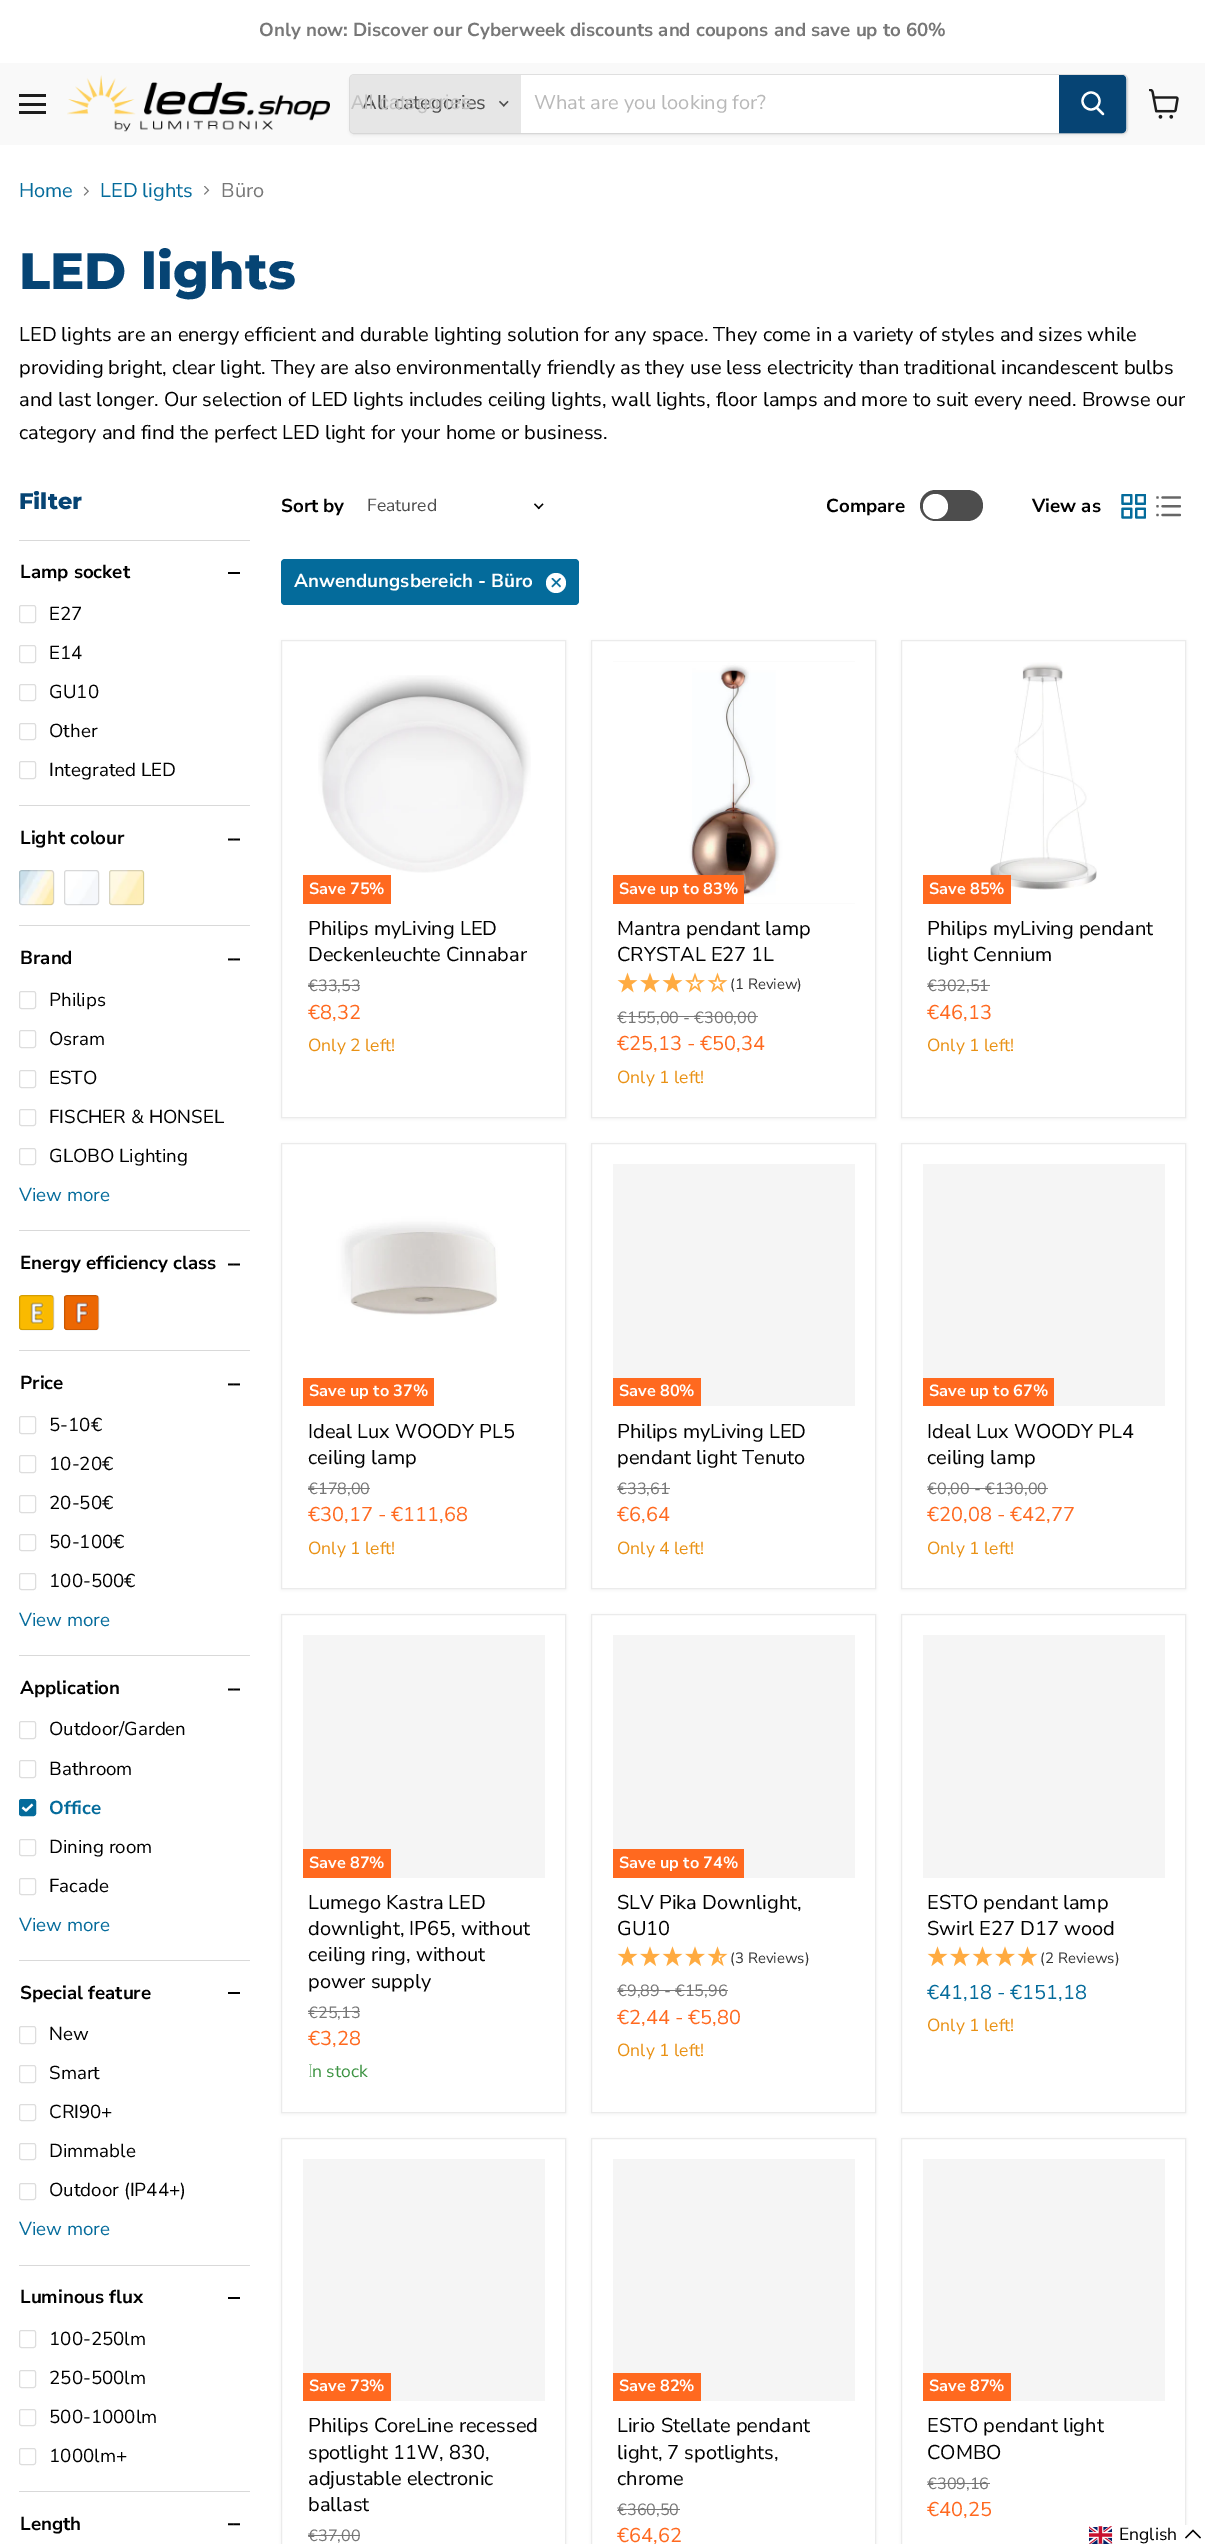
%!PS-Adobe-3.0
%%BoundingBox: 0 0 1205 2544
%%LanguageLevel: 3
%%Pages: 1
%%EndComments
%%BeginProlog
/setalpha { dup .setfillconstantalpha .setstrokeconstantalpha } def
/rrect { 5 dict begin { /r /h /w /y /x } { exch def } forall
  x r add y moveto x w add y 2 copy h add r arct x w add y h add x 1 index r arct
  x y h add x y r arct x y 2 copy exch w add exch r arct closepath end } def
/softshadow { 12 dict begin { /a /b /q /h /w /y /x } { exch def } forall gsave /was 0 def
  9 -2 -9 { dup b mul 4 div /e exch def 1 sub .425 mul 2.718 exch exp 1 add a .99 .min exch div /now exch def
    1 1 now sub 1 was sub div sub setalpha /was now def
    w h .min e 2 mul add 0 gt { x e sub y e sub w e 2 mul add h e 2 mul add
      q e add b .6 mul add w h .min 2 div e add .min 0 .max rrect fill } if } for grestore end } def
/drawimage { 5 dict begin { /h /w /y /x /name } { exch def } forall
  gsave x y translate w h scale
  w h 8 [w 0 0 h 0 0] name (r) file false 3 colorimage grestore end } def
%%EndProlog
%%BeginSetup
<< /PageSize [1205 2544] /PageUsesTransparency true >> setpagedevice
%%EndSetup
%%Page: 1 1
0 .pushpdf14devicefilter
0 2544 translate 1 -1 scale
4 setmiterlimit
1 setgray
0 0 1205 2544 rectfill
0.976 setgray
0 63 1205 82 rectfill
0.114 setgray
19 94 27 3 rectfill
19 103 27 3 rectfill
19 111 27 3 rectfill
(images/1.raw) 67 75 263 57 drawimage
0.502 setgray
349 76 779 60 5 2 0.11 softshadow
0.2 setalpha
349.5 74.5 778 59 4.5 rrect stroke
1 setalpha
0.902 setgray
newpath 354 75 moveto 521 75 lineto 521 133 lineto 354 133 lineto 352 133 350 131 350 129 curveto 350 79 lineto 350 77 352 75 354 75 curveto closepath fill
(images/2.raw) 499 100 10 7 drawimage
1 setgray
521 75 538 58 rectfill
0.024 0.267 0.455 setrgbcolor
newpath 1059.5 75.5 moveto 1122 75.5 lineto 1124 75.5 1125.5 77 1125.5 79 curveto 1125.5 129 lineto 1125.5 131 1124 132.5 1122 132.5 curveto 1059.5 132.5 lineto closepath gsave fill grestore
stroke
1 setgray
2.2 setlinewidth
1 setlinecap
newpath 1103 114 moveto 1097 108 lineto stroke
0 setlinecap
newpath 1091 101 8.5 0 360 arc closepath stroke
(images/3.raw) 1149 89 30 30 drawimage
(images/4.raw) 83 186 6 10 drawimage
(images/5.raw) 204 186 6 9 drawimage
0.851 setgray
19 540 231 1 rectfill
0 setgray
228 572 12 2 rectfill
0.867 setgray
1 setlinewidth
19.5 605.5 16 17 2 rrect stroke
19.5 645.5 16 17 2 rrect stroke
19.5 684.5 16 16 2 rrect stroke
19.5 723.5 16 16 2 rrect stroke
19.5 761.5 16 17 2 rrect stroke
0.851 setgray
19 805 231 1 rectfill
(images/6.raw) 228 838 12 3 drawimage
(images/7.raw) 19 870 35 35 drawimage
0.15 setalpha
0 setgray
19.5 870.5 34 34 2.5 rrect stroke
1 setalpha
(images/8.raw) 65 870 33 35 drawimage
0.15 setalpha
64.5 870.5 34 34 2.5 rrect stroke
1 setalpha
0.992 0.961 0.643 setrgbcolor
109 870 35 35 3 rrect fill
(images/9.raw) 109 870 35 35 drawimage
0.15 setalpha
0 setgray
109.5 870.5 34 34 2.5 rrect stroke
1 setalpha
0.851 setgray
19 925 231 1 rectfill
(images/10.raw) 228 958 12 3 drawimage
0.867 setgray
19.5 991.5 16 17 2 rrect stroke
19.5 1030.5 16 17 2 rrect stroke
19.5 1070.5 16 17 2 rrect stroke
19.5 1109.5 16 16 2 rrect stroke
19.5 1148.5 16 16 2 rrect stroke
0.851 setgray
19 1230 231 1 rectfill
(images/6.raw) 228 1263 12 3 drawimage
(images/11.raw) 18 1295 36 35 drawimage
0.15 setalpha
0 setgray
19.5 1295.5 34 34 2.5 rrect stroke
1 setalpha
(images/12.raw) 63 1295 36 35 drawimage
0.15 setalpha
64.5 1295.5 34 34 2.5 rrect stroke
1 setalpha
0.851 setgray
19 1350 231 1 rectfill
(images/10.raw) 228 1383 12 3 drawimage
0.867 setgray
19.5 1416.5 16 17 2 rrect stroke
19.5 1455.5 16 17 2 rrect stroke
19.5 1495.5 16 17 2 rrect stroke
19.5 1534.5 16 16 2 rrect stroke
19.5 1573.5 16 16 2 rrect stroke
0.851 setgray
19 1655 231 1 rectfill
(images/6.raw) 228 1688 12 3 drawimage
0.867 setgray
19.5 1721.5 16 17 2 rrect stroke
19.5 1760.5 16 17 2 rrect stroke
0.016 0.42 0.608 setrgbcolor
20 1800 15 15 1 rrect fill
19.5 1799.5 16 16 2 rrect stroke
1 setgray
2.1 setlinewidth
newpath 22.5 1807.5 moveto 26 1810.5 lineto 32.5 1804.5 lineto stroke
0.867 setgray
1 setlinewidth
19.5 1839.5 16 16 2 rrect stroke
19.5 1878.5 16 16 2 rrect stroke
0.851 setgray
19 1960 231 1 rectfill
0 setgray
228 1992 12 2 rectfill
0.867 setgray
19.5 2026.5 16 17 2 rrect stroke
19.5 2065.5 16 17 2 rrect stroke
19.5 2104.5 16 16 2 rrect stroke
19.5 2143.5 16 16 2 rrect stroke
19.5 2183.5 16 16 2 rrect stroke
0.851 setgray
19 2265 231 1 rectfill
0 setgray
228 2297 12 2 rectfill
0.867 setgray
19.5 2330.5 16 17 2 rrect stroke
19.5 2370.5 16 17 2 rrect stroke
19.5 2409.5 16 16 2 rrect stroke
19.5 2448.5 16 16 2 rrect stroke
0.851 setgray
19 2491 231 1 rectfill
(images/13.raw) 228 2523 12 3 drawimage
(images/14.raw) 534 503 10 7 drawimage
0.302 setgray
920 490 63 31 15.5 rrect fill
1 setgray
newpath 935.5 506.5 12.5 0 360 arc closepath fill
(images/15.raw) 1121 494 25 25 drawimage
(images/16.raw) 1156 496 25 21 drawimage
0.016 0.42 0.608 setrgbcolor
281 559 298 46 4 rrect fill
1 setgray
newpath 556 583 10 0 360 arc closepath fill
(images/17.raw) 551 578 10 10 drawimage
0.502 setgray
281 641 285 478 0 2.5 0.11 softshadow
1 setgray
newpath 281.5 640.5 moveto 565.5 640.5 lineto 565.5 1117.5 lineto 281.5 1117.5 lineto closepath gsave fill grestore
0.922 setgray
stroke
(images/18.raw) 318 675 213 198 drawimage
1 0.412 0.122 setrgbcolor
303 875 88 29 rectfill
0.467 setgray
308 985 52 1 rectfill
0.502 setgray
591 641 285 478 0 2.5 0.11 softshadow
1 setgray
newpath 591.5 640.5 moveto 875.5 640.5 lineto 875.5 1117.5 lineto 591.5 1117.5 lineto closepath gsave fill grestore
0.922 setgray
stroke
0.961 setgray
613 661 242 243 rectfill
(images/19.raw) 613 661 242 243 drawimage
1 0.412 0.122 setrgbcolor
613 875 131 29 rectfill
(images/20.raw) 617 972 21 21 drawimage
(images/21.raw) 640 972 20 21 drawimage
(images/20.raw) 662 972 21 21 drawimage
(images/22.raw) 685 972 20 21 drawimage
(images/23.raw) 707 972 21 21 drawimage
0.467 setgray
618 1016 140 1 rectfill
0.502 setgray
901 641 285 478 0 2.5 0.11 softshadow
1 setgray
newpath 901.5 640.5 moveto 1185.5 640.5 lineto 1185.5 1117.5 lineto 901.5 1117.5 lineto closepath gsave fill grestore
0.922 setgray
stroke
(images/24.raw) 990 662 107 228 drawimage
1 0.412 0.122 setrgbcolor
923 875 88 29 rectfill
0.467 setgray
928 985 62 1 rectfill
0.502 setgray
281 1144 285 446 0 2.5 0.11 softshadow
1 setgray
newpath 281.5 1143.5 moveto 565.5 1143.5 lineto 565.5 1588.5 lineto 281.5 1588.5 lineto closepath gsave fill grestore
0.922 setgray
stroke
(images/25.raw) 303 1164 242 242 drawimage
1 0.412 0.122 setrgbcolor
303 1378 131 28 rectfill
0.467 setgray
308 1488 62 1 rectfill
0.502 setgray
591 1144 285 446 0 2.5 0.11 softshadow
1 setgray
newpath 591.5 1143.5 moveto 875.5 1143.5 lineto 875.5 1588.5 lineto 591.5 1588.5 lineto closepath gsave fill grestore
0.922 setgray
stroke
0.961 setgray
613 1164 242 242 rectfill
1 0.412 0.122 setrgbcolor
613 1378 88 28 rectfill
0.467 setgray
618 1488 52 1 rectfill
0.502 setgray
901 1144 285 446 0 2.5 0.11 softshadow
1 setgray
newpath 901.5 1143.5 moveto 1185.5 1143.5 lineto 1185.5 1588.5 lineto 901.5 1588.5 lineto closepath gsave fill grestore
0.922 setgray
stroke
0.961 setgray
923 1164 242 242 rectfill
1 0.412 0.122 setrgbcolor
923 1378 131 28 rectfill
0.467 setgray
928 1488 120 1 rectfill
0.502 setgray
281 1615 285 499 0 2.5 0.11 softshadow
1 setgray
newpath 281.5 1614.5 moveto 565.5 1614.5 lineto 565.5 2112.5 lineto 281.5 2112.5 lineto closepath gsave fill grestore
0.922 setgray
stroke
0.961 setgray
303 1635 242 243 rectfill
1 0.412 0.122 setrgbcolor
303 1849 88 29 rectfill
0.467 setgray
308 2011 52 1 rectfill
0.502 setgray
591 1615 285 499 0 2.5 0.11 softshadow
1 setgray
newpath 591.5 1614.5 moveto 875.5 1614.5 lineto 875.5 2112.5 lineto 591.5 2112.5 lineto closepath gsave fill grestore
0.922 setgray
stroke
0.961 setgray
613 1635 242 243 rectfill
1 0.412 0.122 setrgbcolor
613 1849 131 29 rectfill
(images/26.raw) 617 1946 21 21 drawimage
(images/27.raw) 640 1946 20 21 drawimage
(images/26.raw) 662 1946 21 21 drawimage
(images/27.raw) 685 1946 20 21 drawimage
(images/28.raw) 707 1946 21 21 drawimage
0.467 setgray
618 1990 110 1 rectfill
0.502 setgray
901 1615 285 499 0 2.5 0.11 softshadow
1 setgray
newpath 901.5 1614.5 moveto 1185.5 1614.5 lineto 1185.5 2112.5 lineto 901.5 2112.5 lineto closepath gsave fill grestore
0.922 setgray
stroke
0.961 setgray
923 1635 242 243 rectfill
(images/26.raw) 927 1946 21 21 drawimage
(images/27.raw) 950 1946 20 21 drawimage
(images/26.raw) 972 1946 21 21 drawimage
(images/27.raw) 995 1946 20 21 drawimage
(images/26.raw) 1017 1946 21 21 drawimage
0.502 setgray
281 2139 285 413 0 2.5 0.11 softshadow
1 setgray
newpath 281.5 2138.5 moveto 565.5 2138.5 lineto 565.5 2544.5 lineto 281.5 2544.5 lineto closepath gsave fill grestore
0.922 setgray
stroke
0.961 setgray
303 2159 242 242 rectfill
1 0.412 0.122 setrgbcolor
303 2373 88 28 rectfill
0.467 setgray
308 2535 52 1 rectfill
0.502 setgray
591 2139 285 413 0 2.5 0.11 softshadow
1 setgray
newpath 591.5 2138.5 moveto 875.5 2138.5 lineto 875.5 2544.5 lineto 591.5 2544.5 lineto closepath gsave fill grestore
0.922 setgray
stroke
0.961 setgray
613 2159 242 242 rectfill
1 0.412 0.122 setrgbcolor
613 2373 88 28 rectfill
0.467 setgray
618 2509 62 1 rectfill
0.502 setgray
901 2139 285 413 0 2.5 0.11 softshadow
1 setgray
newpath 901.5 2138.5 moveto 1185.5 2138.5 lineto 1185.5 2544.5 lineto 901.5 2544.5 lineto closepath gsave fill grestore
0.922 setgray
stroke
0.961 setgray
923 2159 242 242 rectfill
1 0.412 0.122 setrgbcolor
923 2373 88 28 rectfill
0.467 setgray
928 2483 62 1 rectfill
1 setgray
1185 2525 3 19 rectfill
(images/29.raw) 1089 2526 24 18 drawimage
(images/30.raw) 1089 2526 24 18 drawimage
0 setgray
1.2 setlinewidth
newpath 1200.5 2538 moveto 1193 2530.5 lineto 1185.5 2538 lineto stroke
/NunitoSans-Bold [18.75 0 0 -18.75 0 0] selectfont
0.467 setgray
259 36 moveto (Only now: Discover our Cyberweek discounts and coupons and save up to 60%) show
/NunitoSans-Regular [20 0 0 -20 0 0] selectfont
0.302 setgray
362 109 moveto (All categories) show
/LiberationSans-Regular [20 0 0 -20 0 0] selectfont
0.761 setgray
351 109 moveto (All categories) show
/NunitoSans-Regular [20 0 0 -20 0 0] selectfont
0.722 setgray
534 109 moveto (What are you looking for?) show
0.016 0.42 0.608 setrgbcolor
19 197 moveto (Home) show
100 197 moveto (LED lights) show
0.467 setgray
221 197 moveto (Büro) show
/Montserrat-ExtraBold [51 0 0 -51 0 0] selectfont
0.024 0.267 0.455 setrgbcolor
19 289 moveto (LED lights) show
/NunitoSans-Regular [20 0 0 -20 0 0] selectfont
0 setgray
19 341 moveto (LED lights are an energy efficient and durable lighting solution for any space. They come in a variety of styles and sizes while) show
19 374 moveto (providing bright, clear light. They are also environmentally friendly as they use less electricity than traditional incandescent bulbs) show
19 406 moveto (and last longer. Our selection of LED lights includes ceiling lights, wall lights, floor lamps and more to suit every need. Browse our) show
19 439 moveto (category and find the perfect LED light for your home or business.) show
/Montserrat-ExtraBold [22.5 0 0 -22.5 0 0] selectfont
0.024 0.267 0.455 setrgbcolor
19 509 moveto (Filter) show
/NunitoSans-Bold [18.75 0 0 -18.75 0 0] selectfont
0 setgray
20 578 moveto (Lamp socket) show
/NunitoSans-Regular [18.75 0 0 -18.75 0 0] selectfont
49 620 moveto (E27) show
49 659 moveto (E14) show
49 698 moveto (GU10) show
49 737 moveto (Other) show
49 776 moveto (Integrated LED) show
/NunitoSans-Bold [18.75 0 0 -18.75 0 0] selectfont
20 844 moveto (Light colour) show
20 964 moveto (Brand) show
/NunitoSans-Regular [18.75 0 0 -18.75 0 0] selectfont
49 1006 moveto (Philips) show
49 1045 moveto (Osram) show
49 1084 moveto (ESTO) show
49 1123 moveto (FISCHER & HONSEL) show
49 1162 moveto (GLOBO Lighting) show
0.016 0.42 0.608 setrgbcolor
19 1201 moveto (View more) show
/NunitoSans-Bold [18.75 0 0 -18.75 0 0] selectfont
0 setgray
20 1269 moveto (Energy efficiency class) show
20 1389 moveto (Price) show
/NunitoSans-Regular [18.75 0 0 -18.75 0 0] selectfont
49 1431 moveto (5-10€) show
49 1470 moveto (10-20€) show
49 1509 moveto (20-50€) show
49 1548 moveto (50-100€) show
49 1587 moveto (100-500€) show
0.016 0.42 0.608 setrgbcolor
19 1626 moveto (View more) show
/NunitoSans-Bold [18.75 0 0 -18.75 0 0] selectfont
0 setgray
20 1694 moveto (Application) show
/NunitoSans-Regular [18.75 0 0 -18.75 0 0] selectfont
49 1735 moveto (Outdoor/Garden) show
49 1775 moveto (Bathroom) show
/NunitoSans-Bold [18.75 0 0 -18.75 0 0] selectfont
0.016 0.42 0.608 setrgbcolor
49 1814 moveto (Office) show
/NunitoSans-Regular [18.75 0 0 -18.75 0 0] selectfont
0 setgray
49 1853 moveto (Dining room) show
49 1892 moveto (Facade) show
0.016 0.42 0.608 setrgbcolor
19 1931 moveto (View more) show
/NunitoSans-Bold [18.75 0 0 -18.75 0 0] selectfont
0 setgray
20 1999 moveto (Special feature) show
/NunitoSans-Regular [18.75 0 0 -18.75 0 0] selectfont
49 2040 moveto (New) show
49 2079 moveto (Smart) show
49 2118 moveto (CRI90+) show
49 2157 moveto (Dimmable) show
49 2196 moveto (Outdoor \(IP44+\)) show
0.016 0.42 0.608 setrgbcolor
19 2235 moveto (View more) show
/NunitoSans-Bold [18.75 0 0 -18.75 0 0] selectfont
0 setgray
20 2303 moveto (Luminous flux) show
/NunitoSans-Regular [18.75 0 0 -18.75 0 0] selectfont
49 2345 moveto (100-250lm) show
49 2384 moveto (250-500lm) show
49 2423 moveto (500-1000lm) show
49 2462 moveto (1000lm+) show
/NunitoSans-Bold [18.75 0 0 -18.75 0 0] selectfont
20 2530 moveto (Length) show
281 512 moveto (Sort by) show
/NunitoSans-Regular [17.5 0 0 -17.5 0 0] selectfont
0.302 setgray
367 511 moveto (Featured) show
/NunitoSans-Bold [18.75 0 0 -18.75 0 0] selectfont
0 setgray
826 512 moveto (Compare) show
1032 512 moveto (View as) show
1 setgray
294 587 moveto (Anwendungsbereich - Büro) show
/NunitoSans-Bold [16.25 0 0 -16.25 0 0] selectfont
309 894 moveto (Save 75%) show
/NunitoSans-Regular [20 0 0 -20 0 0] selectfont
0 setgray
308 935 moveto (Philips myLiving LED) show
308 961 moveto (Deckenleuchte Cinnabar) show
/NunitoSans-Regular [16.25 0 0 -16.25 0 0] selectfont
0.467 setgray
308 991 moveto (€33,53) show
/NunitoSans-Regular [20 0 0 -20 0 0] selectfont
1 0.412 0.122 setrgbcolor
308 1019 moveto (€8,32) show
/NunitoSans-Regular [17.5 0 0 -17.5 0 0] selectfont
0.914 0.569 0.078 setrgbcolor
308 1051 moveto (Only 2 left!) show
/NunitoSans-Bold [16.25 0 0 -16.25 0 0] selectfont
1 setgray
619 894 moveto (Save up to 83%) show
/NunitoSans-Regular [20 0 0 -20 0 0] selectfont
0 setgray
617 935 moveto (Mantra pendant lamp) show
617 961 moveto (CRYSTAL E27 1L) show
/NunitoSans-Regular [15 0 0 -15 0 0] selectfont
0.2 setgray
730 989 moveto (\(1 Review\)) show
/NunitoSans-Regular [16.25 0 0 -16.25 0 0] selectfont
0.467 setgray
617 1023 moveto (€155,00 - €300,00) show
/NunitoSans-Regular [20 0 0 -20 0 0] selectfont
1 0.412 0.122 setrgbcolor
617 1050 moveto (€25,13 - €50,34) show
/NunitoSans-Regular [17.5 0 0 -17.5 0 0] selectfont
0.914 0.569 0.078 setrgbcolor
617 1083 moveto (Only 1 left!) show
/NunitoSans-Bold [16.25 0 0 -16.25 0 0] selectfont
1 setgray
929 894 moveto (Save 85%) show
/NunitoSans-Regular [20 0 0 -20 0 0] selectfont
0 setgray
927 935 moveto (Philips myLiving pendant) show
927 961 moveto (light Cennium) show
/NunitoSans-Regular [16.25 0 0 -16.25 0 0] selectfont
0.467 setgray
927 991 moveto (€302,51) show
/NunitoSans-Regular [20 0 0 -20 0 0] selectfont
1 0.412 0.122 setrgbcolor
927 1019 moveto (€46,13) show
/NunitoSans-Regular [17.5 0 0 -17.5 0 0] selectfont
0.914 0.569 0.078 setrgbcolor
927 1051 moveto (Only 1 left!) show
/NunitoSans-Bold [16.25 0 0 -16.25 0 0] selectfont
1 setgray
309 1396 moveto (Save up to 37%) show
/NunitoSans-Regular [20 0 0 -20 0 0] selectfont
0 setgray
308 1438 moveto (Ideal Lux WOODY PL5) show
308 1464 moveto (ceiling lamp) show
/NunitoSans-Regular [16.25 0 0 -16.25 0 0] selectfont
0.467 setgray
308 1494 moveto (€178,00) show
/NunitoSans-Regular [20 0 0 -20 0 0] selectfont
1 0.412 0.122 setrgbcolor
308 1521 moveto (€30,17 - €111,68) show
/NunitoSans-Regular [17.5 0 0 -17.5 0 0] selectfont
0.914 0.569 0.078 setrgbcolor
308 1554 moveto (Only 1 left!) show
/NunitoSans-Bold [16.25 0 0 -16.25 0 0] selectfont
1 setgray
619 1396 moveto (Save 80%) show
/NunitoSans-Regular [20 0 0 -20 0 0] selectfont
0 setgray
617 1438 moveto (Philips myLiving LED) show
617 1464 moveto (pendant light Tenuto) show
/NunitoSans-Regular [16.25 0 0 -16.25 0 0] selectfont
0.467 setgray
617 1494 moveto (€33,61) show
/NunitoSans-Regular [20 0 0 -20 0 0] selectfont
1 0.412 0.122 setrgbcolor
617 1521 moveto (€6,64) show
/NunitoSans-Regular [17.5 0 0 -17.5 0 0] selectfont
0.914 0.569 0.078 setrgbcolor
617 1554 moveto (Only 4 left!) show
/NunitoSans-Bold [16.25 0 0 -16.25 0 0] selectfont
1 setgray
929 1396 moveto (Save up to 67%) show
/NunitoSans-Regular [20 0 0 -20 0 0] selectfont
0 setgray
927 1438 moveto (Ideal Lux WOODY PL4) show
927 1464 moveto (ceiling lamp) show
/NunitoSans-Regular [16.25 0 0 -16.25 0 0] selectfont
0.467 setgray
927 1494 moveto (€0,00 - €130,00) show
/NunitoSans-Regular [20 0 0 -20 0 0] selectfont
1 0.412 0.122 setrgbcolor
927 1521 moveto (€20,08 - €42,77) show
/NunitoSans-Regular [17.5 0 0 -17.5 0 0] selectfont
0.914 0.569 0.078 setrgbcolor
927 1554 moveto (Only 1 left!) show
/NunitoSans-Bold [16.25 0 0 -16.25 0 0] selectfont
1 setgray
309 1868 moveto (Save 87%) show
/NunitoSans-Regular [20 0 0 -20 0 0] selectfont
0 setgray
308 1909 moveto (Lumego Kastra LED) show
308 1935 moveto (downlight, IP65, without) show
308 1961 moveto (ceiling ring, without) show
308 1988 moveto (power supply) show
/NunitoSans-Regular [16.25 0 0 -16.25 0 0] selectfont
0.467 setgray
308 2018 moveto (€25,13) show
/NunitoSans-Regular [20 0 0 -20 0 0] selectfont
1 0.412 0.122 setrgbcolor
308 2045 moveto (€3,28) show
/NotoSans-Thin [17.5 0 0 -17.5 0 0] selectfont
0.235 0.576 0.259 setrgbcolor
308 2077 moveto (I) show
/NunitoSans-Regular [17.5 0 0 -17.5 0 0] selectfont
312 2077 moveto (n stock) show
/NunitoSans-Bold [16.25 0 0 -16.25 0 0] selectfont
1 setgray
619 1868 moveto (Save up to 74%) show
/NunitoSans-Regular [20 0 0 -20 0 0] selectfont
0 setgray
617 1909 moveto (SLV Pika Downlight,) show
617 1935 moveto (GU10) show
/NunitoSans-Regular [15 0 0 -15 0 0] selectfont
0.2 setgray
730 1963 moveto (\(3 Reviews\)) show
/NunitoSans-Regular [16.25 0 0 -16.25 0 0] selectfont
0.467 setgray
617 1996 moveto (€9,89 - €15,96) show
/NunitoSans-Regular [20 0 0 -20 0 0] selectfont
1 0.412 0.122 setrgbcolor
617 2024 moveto (€2,44 - €5,80) show
/NunitoSans-Regular [17.5 0 0 -17.5 0 0] selectfont
0.914 0.569 0.078 setrgbcolor
617 2056 moveto (Only 1 left!) show
/NunitoSans-Regular [20 0 0 -20 0 0] selectfont
0 setgray
927 1909 moveto (ESTO pendant lamp) show
927 1935 moveto (Swirl E27 D17 wood) show
/NunitoSans-Regular [15 0 0 -15 0 0] selectfont
0.2 setgray
1040 1963 moveto (\(2 Reviews\)) show
/NunitoSans-Regular [20 0 0 -20 0 0] selectfont
0.016 0.42 0.608 setrgbcolor
927 1999 moveto (€41,18 - €151,18) show
/NunitoSans-Regular [17.5 0 0 -17.5 0 0] selectfont
0.914 0.569 0.078 setrgbcolor
927 2031 moveto (Only 1 left!) show
/NunitoSans-Bold [16.25 0 0 -16.25 0 0] selectfont
1 setgray
309 2391 moveto (Save 73%) show
/NunitoSans-Regular [20 0 0 -20 0 0] selectfont
0 setgray
308 2432 moveto (Philips CoreLine recessed) show
308 2459 moveto (spotlight 11W, 830,) show
308 2485 moveto (adjustable electronic) show
308 2511 moveto (ballast) show
/NunitoSans-Regular [16.25 0 0 -16.25 0 0] selectfont
0.467 setgray
308 2541 moveto (€37,00) show
/NunitoSans-Bold [16.25 0 0 -16.25 0 0] selectfont
1 setgray
619 2391 moveto (Save 82%) show
/NunitoSans-Regular [20 0 0 -20 0 0] selectfont
0 setgray
617 2432 moveto (Lirio Stellate pendant) show
617 2459 moveto (light, 7 spotlights,) show
617 2485 moveto (chrome) show
/NunitoSans-Regular [16.25 0 0 -16.25 0 0] selectfont
0.467 setgray
617 2515 moveto (€360,50) show
/NunitoSans-Regular [20 0 0 -20 0 0] selectfont
1 0.412 0.122 setrgbcolor
617 2542 moveto (€64,62) show
/NunitoSans-Bold [16.25 0 0 -16.25 0 0] selectfont
1 setgray
929 2391 moveto (Save 87%) show
/NunitoSans-Regular [20 0 0 -20 0 0] selectfont
0 setgray
927 2432 moveto (ESTO pendant light) show
927 2459 moveto (COMBO) show
/NunitoSans-Regular [16.25 0 0 -16.25 0 0] selectfont
0.467 setgray
927 2489 moveto (€309,16) show
/NunitoSans-Regular [20 0 0 -20 0 0] selectfont
1 0.412 0.122 setrgbcolor
927 2516 moveto (€40,25) show
/NunitoSans-Regular [17.5 0 0 -17.5 0 0] selectfont
0 setgray
1119 2540 moveto (English) show
.poppdf14devicefilter showpage
%%EOF
